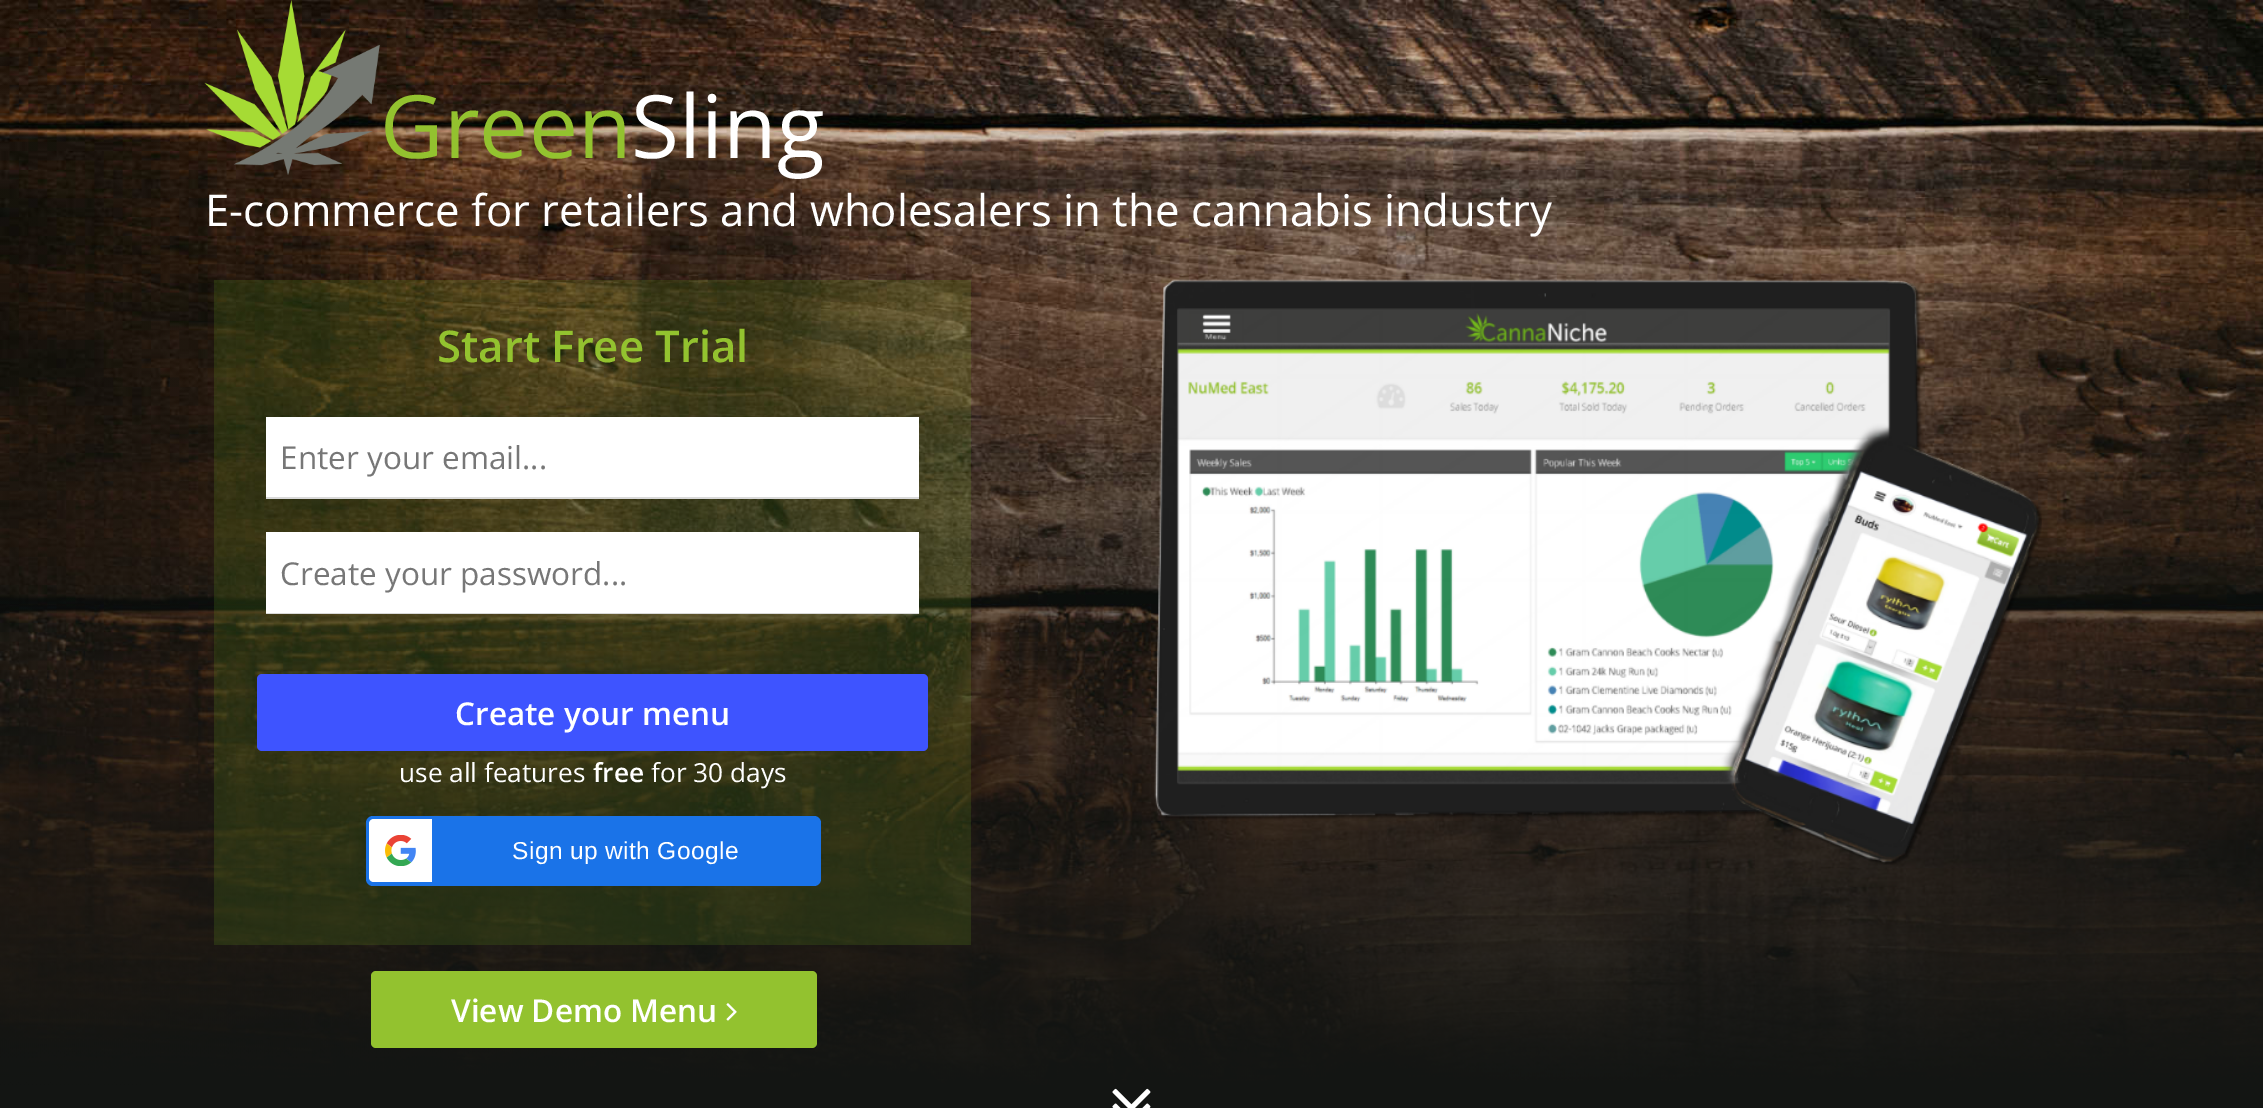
%!PS-Adobe-3.0
%%BoundingBox: 0 0 2263 1108
%%LanguageLevel: 3
%%Pages: 1
%%EndComments
%%BeginProlog
/setalpha { dup .setfillconstantalpha .setstrokeconstantalpha } def
/rrect { 5 dict begin { /r /h /w /y /x } { exch def } forall
  x r add y moveto x w add y 2 copy h add r arct x w add y h add x 1 index r arct
  x y h add x y r arct x y 2 copy exch w add exch r arct closepath end } def
/drawimage { 5 dict begin { /h /w /y /x /name } { exch def } forall
  gsave x y translate w h scale
  w h 8 [w 0 0 h 0 0] name (r) file false 3 colorimage grestore end } def
%%EndProlog
%%BeginSetup
<< /PageSize [2263 1108] /PageUsesTransparency true >> setpagedevice
%%EndSetup
%%Page: 1 1
0 .pushpdf14devicefilter
0 1108 translate 1 -1 scale
4 setmiterlimit
1 setgray
0 0 2263 1108 rectfill
(images/1.raw) 0 0 2263 1108 drawimage
(images/2.raw) 204 0 176 175 drawimage
0.15 setalpha
0.463 0.745 0.118 setrgbcolor
214 280 757 665 rectfill
1 setalpha
0.851 setgray
newpath 266 497 moveto 266 499 lineto 919 499 lineto 919 418 lineto 919 497 lineto closepath fill
1 setgray
266 417 653 80 rectfill
0.851 setgray
newpath 266 612 moveto 266 614 lineto 919 614 lineto 919 534 lineto 919 612 lineto closepath fill
1 setgray
266 532 653 81 rectfill
0.243 0.329 1 setrgbcolor
257 674 671 77 5 rrect fill
0.102 0.451 0.91 setrgbcolor
366 816 455 70 7 rrect fill
1 setgray
newpath 374 819 moveto 432 819 lineto 432 882 lineto 374 882 lineto 371 882 369 880 369 877 curveto 369 824 lineto 369 821 371 819 374 819 curveto closepath fill
(images/3.raw) 385 835 31 31 drawimage
0.576 0.761 0.184 setrgbcolor
371 971 446 77 5 rrect fill
(images/4.raw) 726 1003 11 18 drawimage
(images/5.raw) 1154 274 888 591 drawimage
(images/6.raw) 1112 1088 39 20 drawimage
/OpenSans-Regular [87.5 0 0 -87.5 0 0] selectfont
380 158 moveto (Green) show
1 setgray
631 158 moveto (Sling) show
/OpenSans-Regular [43.75 0 0 -43.75 0 0] selectfont
205 226 moveto (E-commerce for retailers and wholesalers in the cannabis industry) show
/OpenSans-SemiBold [43.75 0 0 -43.75 0 0] selectfont
0.576 0.761 0.184 setrgbcolor
437 362 moveto (Start Free Trial) show
/OpenSans-Regular [31.5 0 0 -31.5 0 0] selectfont
0.467 setgray
280 469 moveto (Enter your email...) show
280 585 moveto (Create your password...) show
/OpenSans-SemiBold [31.5 0 0 -31.5 0 0] selectfont
1 setgray
455 725 moveto (Create your menu) show
/OpenSans-Regular [26.25 0 0 -26.25 0 0] selectfont
399 782 moveto (use all features) show
/OpenSans-SemiBold [26.25 0 0 -26.25 0 0] selectfont
593 782 moveto (free) show
/OpenSans-Regular [26.25 0 0 -26.25 0 0] selectfont
651 782 moveto (for 30 days) show
/LiberationSans-Regular [24.5 0 0 -24.5 0 0] selectfont
512 859 moveto 0.4 0 (Sign up with Google) ashow
/OpenSans-SemiBold [31.5 0 0 -31.5 0 0] selectfont
451 1022 moveto (View Demo Menu) show
.poppdf14devicefilter showpage
%%EOF
